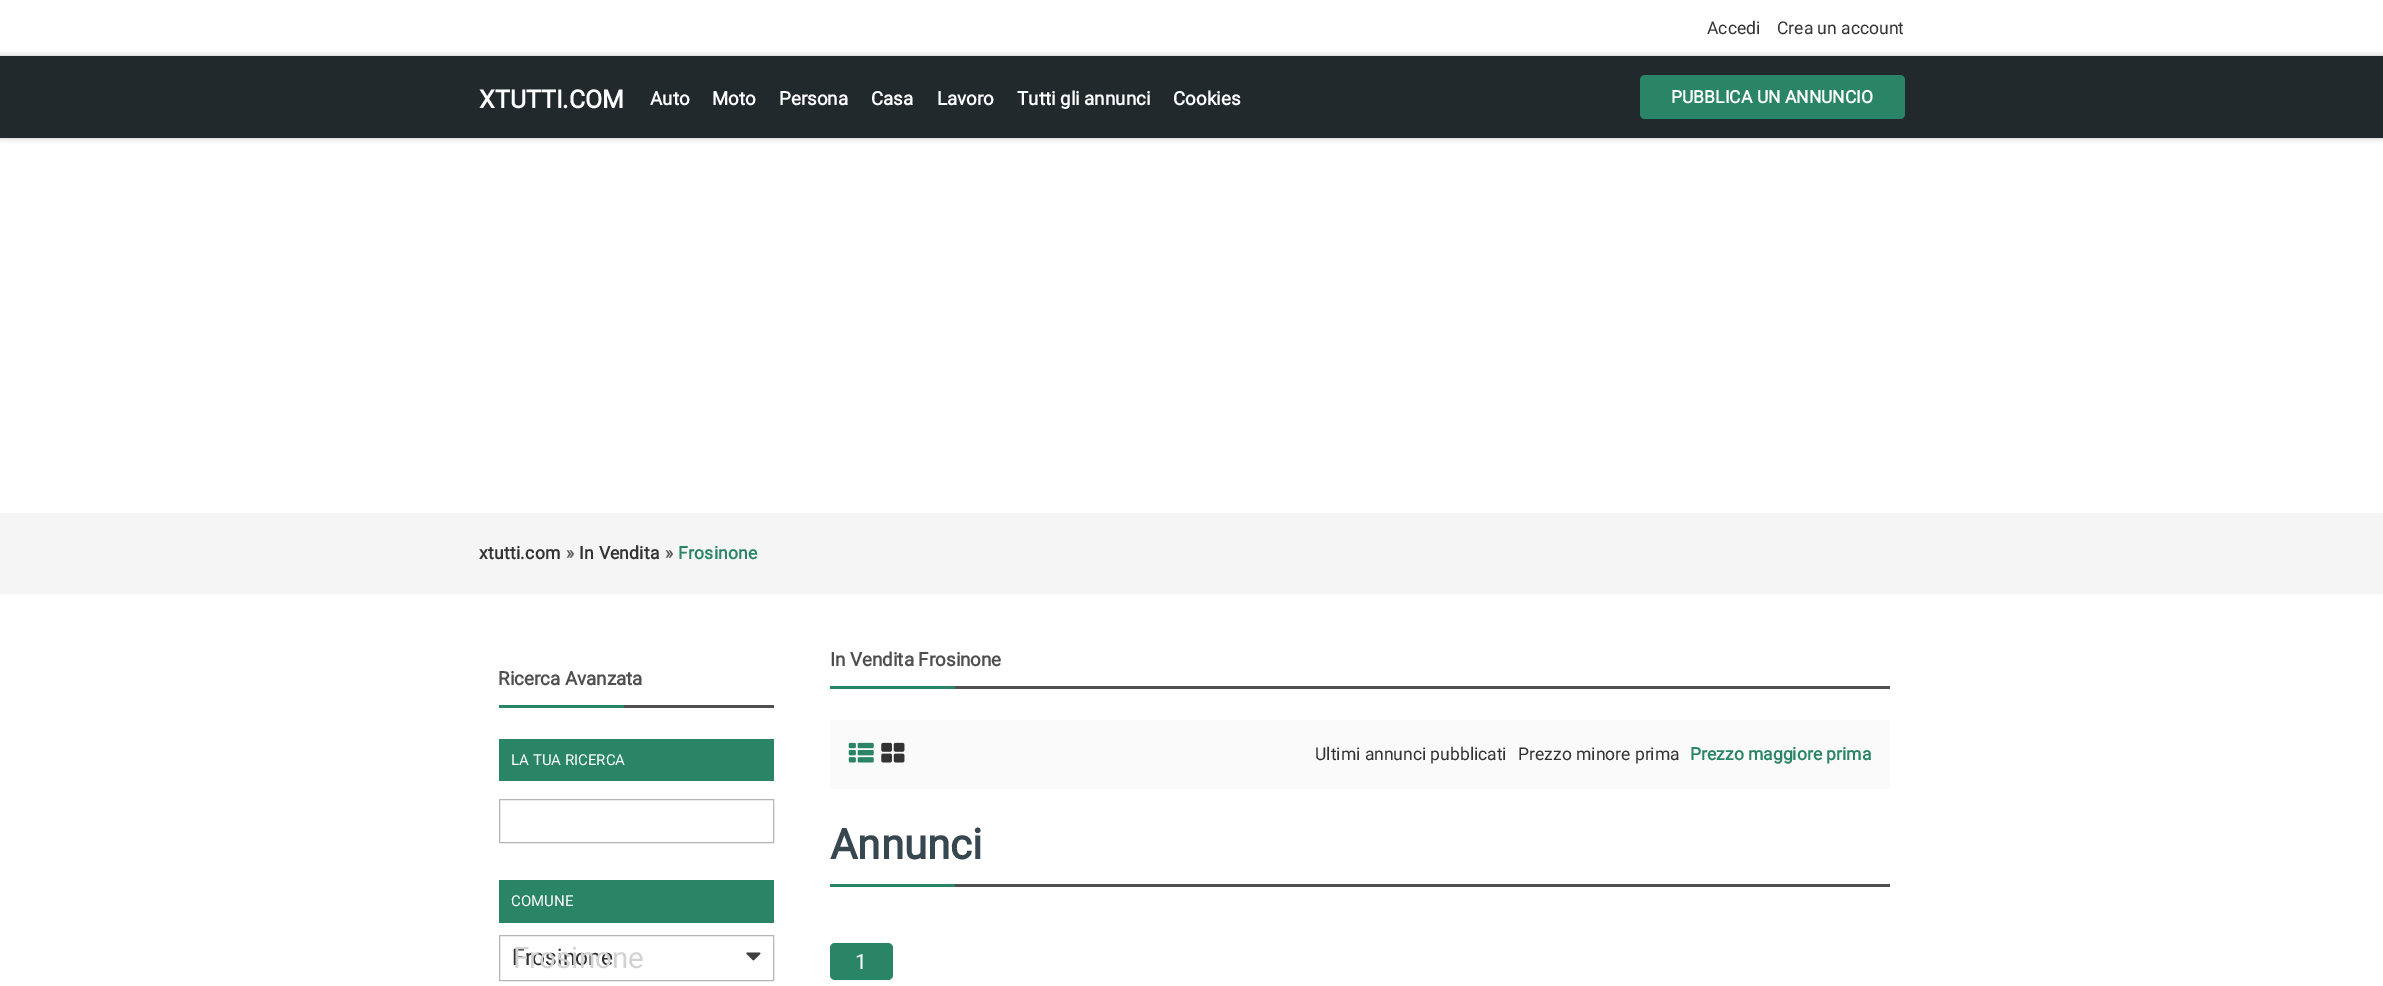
%!PS-Adobe-3.0
%%BoundingBox: 0 0 2383 986
%%LanguageLevel: 3
%%Pages: 1
%%EndComments
%%BeginProlog
/setalpha { dup .setfillconstantalpha .setstrokeconstantalpha } def
/rrect { 5 dict begin { /r /h /w /y /x } { exch def } forall
  x r add y moveto x w add y 2 copy h add r arct x w add y h add x 1 index r arct
  x y h add x y r arct x y 2 copy exch w add exch r arct closepath end } def
/softshadow { 12 dict begin { /a /b /q /h /w /y /x } { exch def } forall gsave /was 0 def
  9 -2 -9 { dup b mul 4 div /e exch def 1 sub .425 mul 2.718 exch exp 1 add a .99 .min exch div /now exch def
    1 1 now sub 1 was sub div sub setalpha /was now def
    w h .min e 2 mul add 0 gt { x e sub y e sub w e 2 mul add h e 2 mul add
      q e add b .6 mul add w h .min 2 div e add .min 0 .max rrect fill } if } for grestore end } def
/drawimage { 5 dict begin { /h /w /y /x /name } { exch def } forall
  gsave x y translate w h scale
  w h 8 [w 0 0 h 0 0] name (r) file false 3 colorimage grestore end } def
%%EndProlog
%%BeginSetup
<< /PageSize [2383 986] /PageUsesTransparency true >> setpagedevice
%%EndSetup
%%Page: 1 1
0 .pushpdf14devicefilter
0 986 translate 1 -1 scale
4 setmiterlimit
1 setgray
0 0 2383 986 rectfill
0.012 setgray
0 56 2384 82 0 3 0.25 softshadow
0.129 0.161 0.176 setrgbcolor
0 56 2383 82 rectfill
0.161 0.522 0.396 setrgbcolor
1640 75 265 44 5 rrect fill
0.961 setgray
0 513 2383 81 rectfill
0.31 setgray
624 705 150 3 rectfill
0.161 0.522 0.396 setrgbcolor
499 705 125 3 rectfill
499 739 275 42 rectfill
0.71 setgray
499.5 799.5 274 43 rectstroke
0.161 0.522 0.396 setrgbcolor
499 880 275 43 rectfill
0.71 setgray
499.5 935.5 274 45 rectstroke
(images/1.raw) 746 952 15 9 drawimage
0.31 setgray
955 686 935 3 rectfill
0.161 0.522 0.396 setrgbcolor
830 686 125 3 rectfill
0.98 setgray
830 720 1060 69 rectfill
(images/2.raw) 848 742 26 21 drawimage
(images/3.raw) 881 742 24 21 drawimage
0.31 setgray
955 884 935 3 rectfill
0.161 0.522 0.396 setrgbcolor
830 884 125 3 rectfill
830 943 63 37 5 rrect fill
/Roboto-Regular [17.5 0 0 -17.5 0 0] selectfont
0.2 setgray
1707 34 moveto (Accedi) show
1777 34 moveto (Crea un account) show
/Roboto-Bold [25 0 0 -25 0 0] selectfont
1 setgray
479 108 moveto (XTUTTI.COM) show
/Roboto-Bold [18.75 0 0 -18.75 0 0] selectfont
650 105 moveto (Auto) show
712 105 moveto (Moto) show
779 105 moveto (Persona) show
871 105 moveto (Casa) show
937 105 moveto (Lavoro) show
1017 105 moveto (Tutti gli annunci) show
1173 105 moveto (Cookies) show
/Roboto-Bold [17.5 0 0 -17.5 0 0] selectfont
1671 103 moveto (PUBBLICA UN ANNUNCIO) show
0.2 setgray
479 559 moveto 0.25 0 (xtutti.com) ashow
0.341 setgray
566 559 moveto 0.25 0 (») ashow
0.2 setgray
579 559 moveto 0.25 0 (In Vendita) ashow
0.341 setgray
665 559 moveto 0.25 0 (») ashow
0.161 0.522 0.396 setrgbcolor
678 559 moveto 0.25 0 (Frosinone) ashow
/Roboto-Bold [18.75 0 0 -18.75 0 0] selectfont
0.31 setgray
498 685 moveto (Ricerca Avanzata) show
/Roboto-Regular [15 0 0 -15 0 0] selectfont
1 setgray
511 765 moveto (LA TUA RICERCA) show
511 906 moveto (COMUNE) show
/Roboto-Regular [22.75 0 0 -22.75 0 0] selectfont
0.2 setgray
512 965 moveto (Frosinone) show
/Roboto-Regular [29.5 0 0 -29.5 0 0] selectfont
0.824 setgray
513 968 moveto (Frosinone) show
/Roboto-Bold [18.75 0 0 -18.75 0 0] selectfont
0.31 setgray
830 666 moveto (In Vendita Frosinone) show
/Roboto-Regular [17.5 0 0 -17.5 0 0] selectfont
0.2 setgray
1315 760 moveto (Ultimi annunci pubblicati) show
1518 760 moveto (Prezzo minore prima) show
/Roboto-Bold [17.5 0 0 -17.5 0 0] selectfont
0.161 0.522 0.396 setrgbcolor
1690 760 moveto (Prezzo maggiore prima) show
/Roboto-Bold [42 0 0 -42 0 0] selectfont
0.216 0.278 0.31 setrgbcolor
830 859 moveto (Annunci) show
/Roboto-Regular [21 0 0 -21 0 0] selectfont
1 setgray
855 969 moveto (1) show
.poppdf14devicefilter showpage
%%EOF
